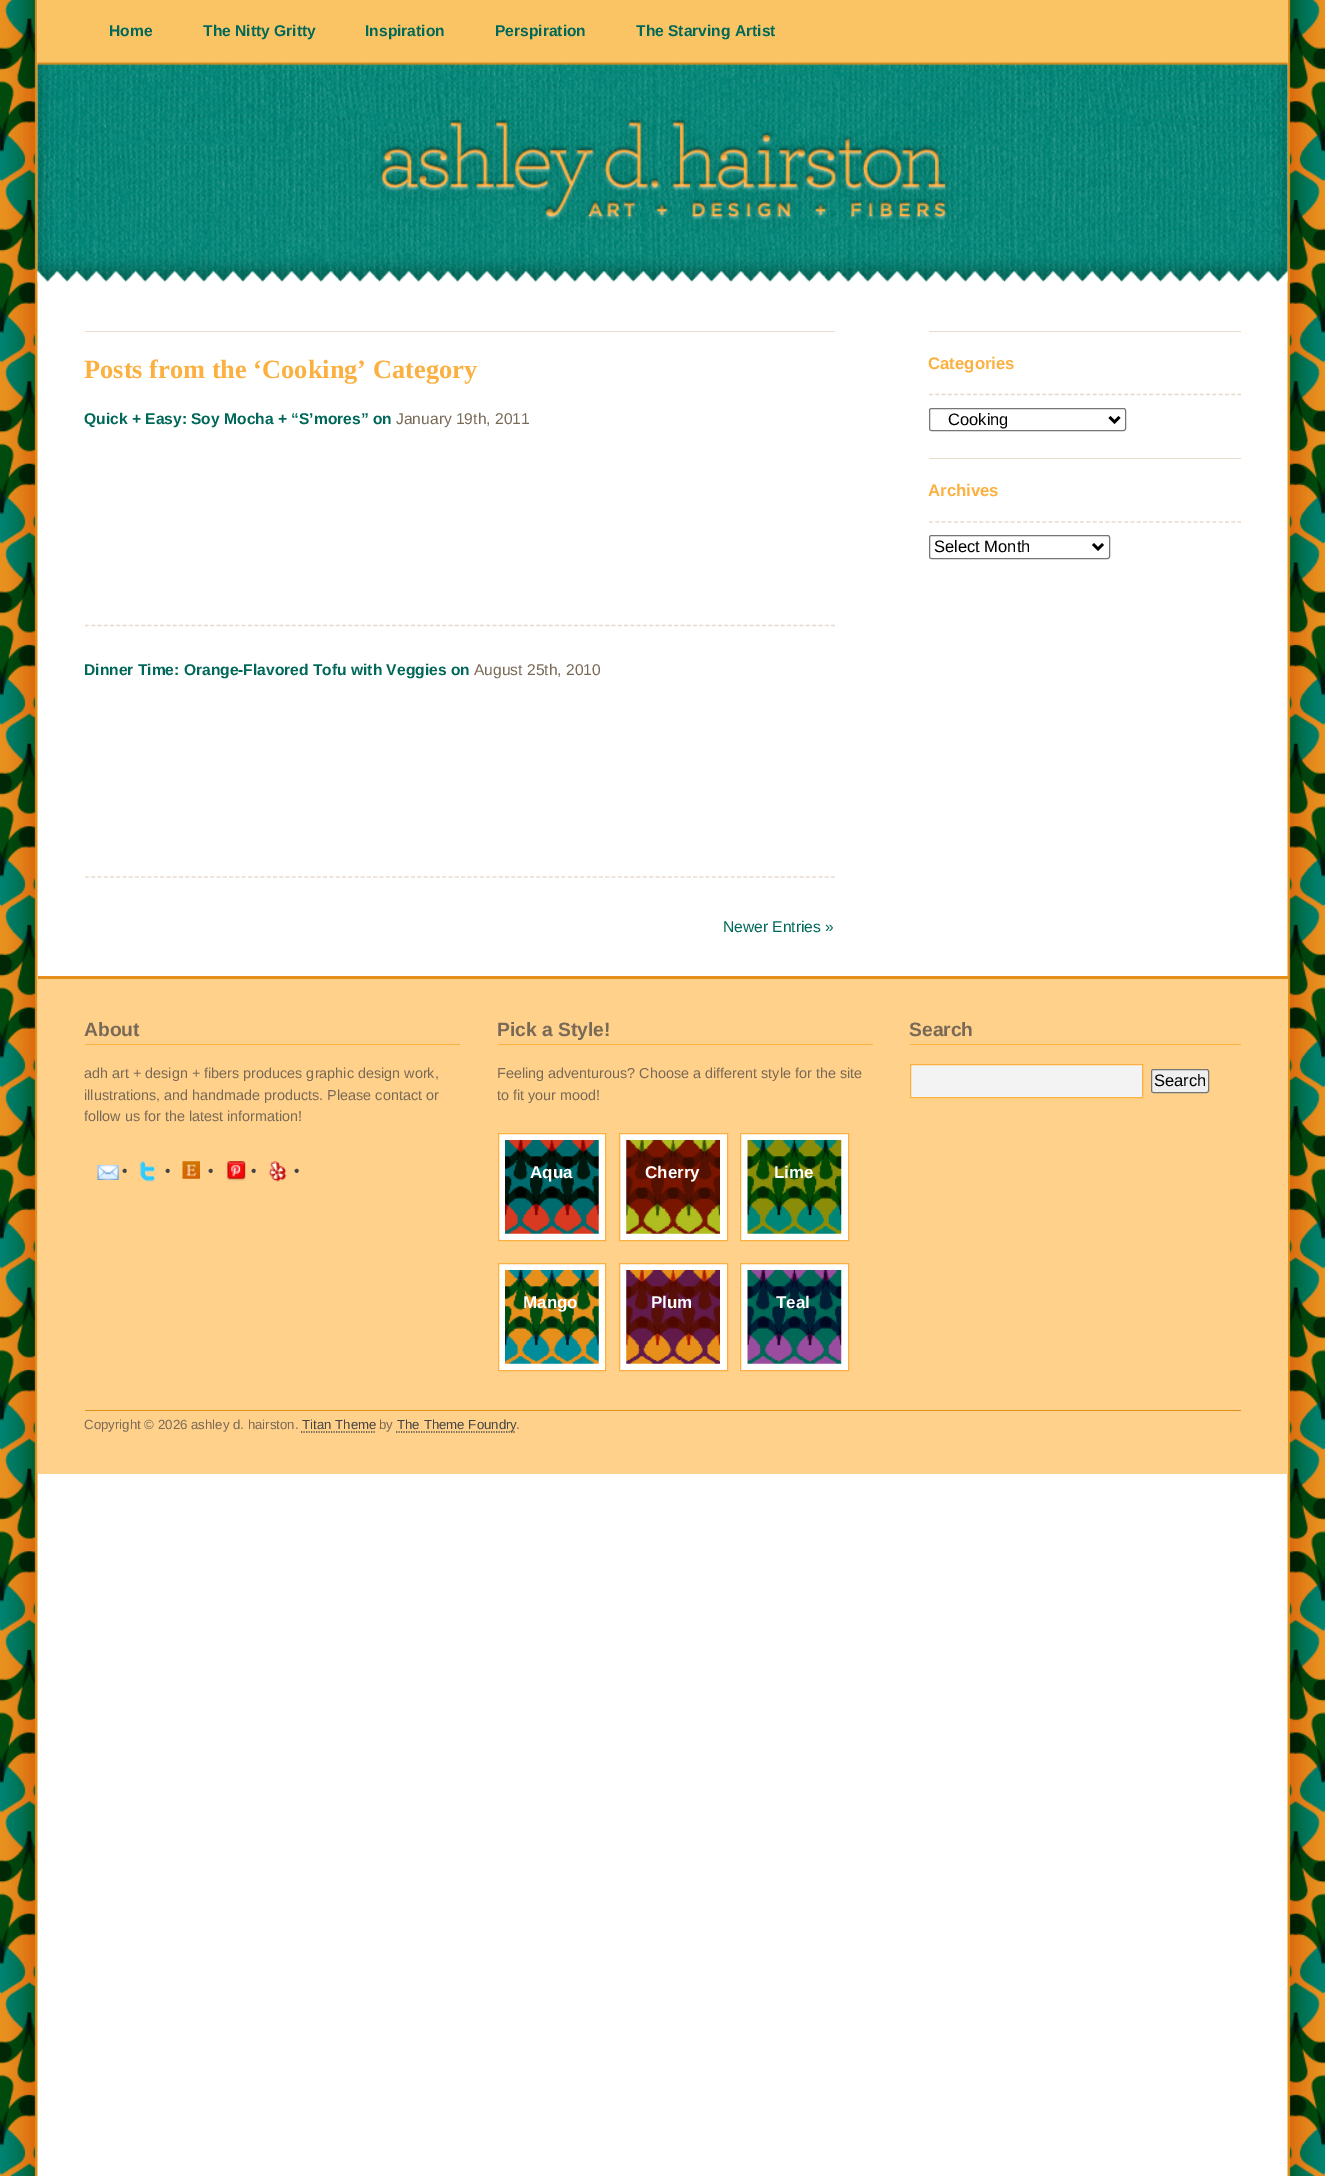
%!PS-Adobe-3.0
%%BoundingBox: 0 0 1325 2176
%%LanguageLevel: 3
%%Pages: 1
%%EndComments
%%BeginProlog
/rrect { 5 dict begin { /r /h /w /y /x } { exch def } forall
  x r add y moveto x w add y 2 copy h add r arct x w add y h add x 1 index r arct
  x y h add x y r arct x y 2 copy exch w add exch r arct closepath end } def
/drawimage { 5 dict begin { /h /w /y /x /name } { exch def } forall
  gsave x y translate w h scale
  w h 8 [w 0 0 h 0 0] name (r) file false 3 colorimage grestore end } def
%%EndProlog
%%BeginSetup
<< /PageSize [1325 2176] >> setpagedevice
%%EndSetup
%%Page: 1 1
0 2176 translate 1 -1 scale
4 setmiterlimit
1 setgray
0 0 1325 2176 rectfill
(images/1.raw) 0 0 1325 2176 drawimage
0.98 0.769 0.392 setrgbcolor
38 0 1250 63 rectfill
(images/2.raw) 37 62 1251 220 drawimage
0.91 0.859 0.804 setrgbcolor
85 331 750 1 rectfill
1.2 setlinewidth
[3.75 2.52] 0 setdash
newpath 85 625.5 moveto 835 625.5 lineto stroke
newpath 85 877 moveto 835 877 lineto stroke
929 331 312 1 rectfill
[3.75 2.55] 0 setdash
newpath 929 394.5 moveto 1241 394.5 lineto stroke
0.463 setgray
1 setlinewidth
[] 0 setdash
929.5 408.5 196 22 2 rrect stroke
0 setgray
2.5 setlinewidth
newpath 1109.5 417 moveto 1114.5 422 lineto 1119.5 417 lineto stroke
0.91 0.859 0.804 setrgbcolor
929 458 312 1 rectfill
1.2 setlinewidth
[3.75 2.55] 0 setdash
newpath 929 522 moveto 1241 522 lineto stroke
0.463 setgray
1 setlinewidth
[] 0 setdash
929.5 535.5 180 23 2 rrect stroke
0 setgray
2.5 setlinewidth
newpath 1093 544 moveto 1098 549 lineto 1103 544 lineto stroke
1 0.82 0.545 setrgbcolor
38 979 1250 495 rectfill
0.898 0.557 0.102 setrgbcolor
38 976 1250 3 rectfill
0.984 0.69 0.251 setrgbcolor
85 1044 375 1 rectfill
(images/3.raw) 97 1165 22 15 drawimage
(images/4.raw) 140 1161 15 21 drawimage
(images/5.raw) 182 1161 18 18 drawimage
(images/6.raw) 226 1161 20 20 drawimage
(images/7.raw) 268 1161 19 21 drawimage
498 1044 375 1 rectfill
1 setgray
499 1134 106 106 rectfill
(images/8.raw) 505 1140 94 94 drawimage
0.984 0.69 0.251 setrgbcolor
1 setlinewidth
498.5 1133.5 107 107 rectstroke
1 setgray
620 1134 107 106 rectfill
(images/9.raw) 626 1140 94 94 drawimage
0.984 0.69 0.251 setrgbcolor
619.5 1133.5 108 107 rectstroke
1 setgray
741 1134 107 106 rectfill
(images/10.raw) 747 1140 95 94 drawimage
0.984 0.69 0.251 setrgbcolor
740.5 1133.5 108 107 rectstroke
1 setgray
499 1264 106 106 rectfill
(images/11.raw) 505 1270 94 94 drawimage
0.984 0.69 0.251 setrgbcolor
498.5 1263.5 107 107 rectstroke
1 setgray
620 1264 107 106 rectfill
(images/12.raw) 626 1270 94 94 drawimage
0.984 0.69 0.251 setrgbcolor
619.5 1263.5 108 107 rectstroke
1 setgray
741 1264 107 106 rectfill
(images/13.raw) 747 1270 95 94 drawimage
0.984 0.69 0.251 setrgbcolor
740.5 1263.5 108 107 rectstroke
910 1044 331 1 rectfill
0.953 setgray
newpath 910.5 1064.5 moveto 1142.5 1064.5 lineto 1142.5 1097.5 lineto 910.5 1097.5 lineto closepath gsave fill grestore
0.984 0.69 0.251 setrgbcolor
stroke
0.937 setgray
1151.5 1069.5 57 23 2 rrect gsave fill grestore
0.463 setgray
stroke
0.898 0.557 0.102 setrgbcolor
85 1410 1156 1 rectfill
0.267 setgray
1.2 setlinewidth
[1.25 1.25] 0 setdash
newpath 301 1432 moveto 375 1432 lineto stroke
newpath 396 1432 moveto 516 1432 lineto stroke
/LiberationSans-Bold [15.6 0 0 -15.6 0 0] selectfont
0 0.408 0.345 setrgbcolor
109 36 moveto (Home) show
203 36 moveto (The Nitty Gritty) show
365 36 moveto (Inspiration) show
495 36 moveto (Perspiration) show
636 36 moveto (The Starving Artist) show
/LiberationSerif-Bold [26.4 0 0 -26.4 0 0] selectfont
0.984 0.69 0.251 setrgbcolor
84 378 moveto (Posts from the ‘Cooking’ Category) show
/LiberationSans-Bold [15.6 0 0 -15.6 0 0] selectfont
0 0.408 0.345 setrgbcolor
84 424 moveto (Quick + Easy: Soy Mocha + “S’mores” on) show
/LiberationSans-Regular [15.6 0 0 -15.6 0 0] selectfont
0.475 0.412 0.341 setrgbcolor
396 424 moveto (January 19th, 2011) show
/LiberationSans-Bold [15.6 0 0 -15.6 0 0] selectfont
0 0.408 0.345 setrgbcolor
84 675 moveto (Dinner Time: Orange-Flavored Tofu with Veggies on) show
/LiberationSans-Regular [15.6 0 0 -15.6 0 0] selectfont
0.475 0.412 0.341 setrgbcolor
474 675 moveto (August 25th, 2010) show
0 0.408 0.345 setrgbcolor
723 932 moveto (Newer Entries ») show
/LiberationSans-Bold [16.75 0 0 -16.75 0 0] selectfont
0.984 0.69 0.251 setrgbcolor
928 369 moveto (Categories) show
/LiberationSans-Regular [16.5 0 0 -16.5 0 0] selectfont
0 setgray
948 425 moveto (Cooking) show
/LiberationSans-Bold [16.75 0 0 -16.75 0 0] selectfont
0.984 0.69 0.251 setrgbcolor
928 496 moveto (Archives) show
/LiberationSans-Regular [16.5 0 0 -16.5 0 0] selectfont
0 setgray
934 552 moveto (Select Month) show
/LiberationSans-Bold [19.25 0 0 -19.25 0 0] selectfont
0.475 0.412 0.341 setrgbcolor
84 1036 moveto (About) show
/LiberationSans-Regular [14.4 0 0 -14.4 0 0] selectfont
84 1078 moveto (adh art + design + fibers produces graphic design work,) show
84 1100 moveto (illustrations, and handmade products. Please contact or) show
84 1121 moveto (follow us for the latest information!) show
/LiberationSans-Regular [15.6 0 0 -15.6 0 0] selectfont
0.267 setgray
122 1176 moveto (•) show
165 1176 moveto (•) show
208 1176 moveto (•) show
251 1176 moveto (•) show
294 1176 moveto (•) show
/LiberationSans-Bold [19.25 0 0 -19.25 0 0] selectfont
0.475 0.412 0.341 setrgbcolor
497 1036 moveto (Pick a Style!) show
/LiberationSans-Regular [14.4 0 0 -14.4 0 0] selectfont
497 1078 moveto (Feeling adventurous? Choose a different style for the site) show
497 1100 moveto (to fit your mood!) show
/LiberationSans-Bold [17 0 0 -17 0 0] selectfont
1 setgray
530 1178 moveto (Aqua) show
645 1178 moveto (Cherry) show
774 1178 moveto (Lime) show
523 1308 moveto (Mango) show
651 1308 moveto (Plum) show
776 1308 moveto (Teal) show
/LiberationSans-Bold [19.25 0 0 -19.25 0 0] selectfont
0.475 0.412 0.341 setrgbcolor
909 1036 moveto (Search) show
/LiberationSans-Regular [16.5 0 0 -16.5 0 0] selectfont
0 setgray
1154 1086 moveto (Search) show
/LiberationSans-Regular [13.25 0 0 -13.25 0 0] selectfont
0.475 0.412 0.341 setrgbcolor
84 1429 moveto (Copyright © 2026 ashley d. hairston.) show
0.267 setgray
302 1429 moveto (Titan Theme) show
0.475 0.412 0.341 setrgbcolor
379 1429 moveto (by) show
0.267 setgray
397 1429 moveto (The Theme Foundry) show
0.475 0.412 0.341 setrgbcolor
516 1429 moveto (.) show
showpage
%%EOF
